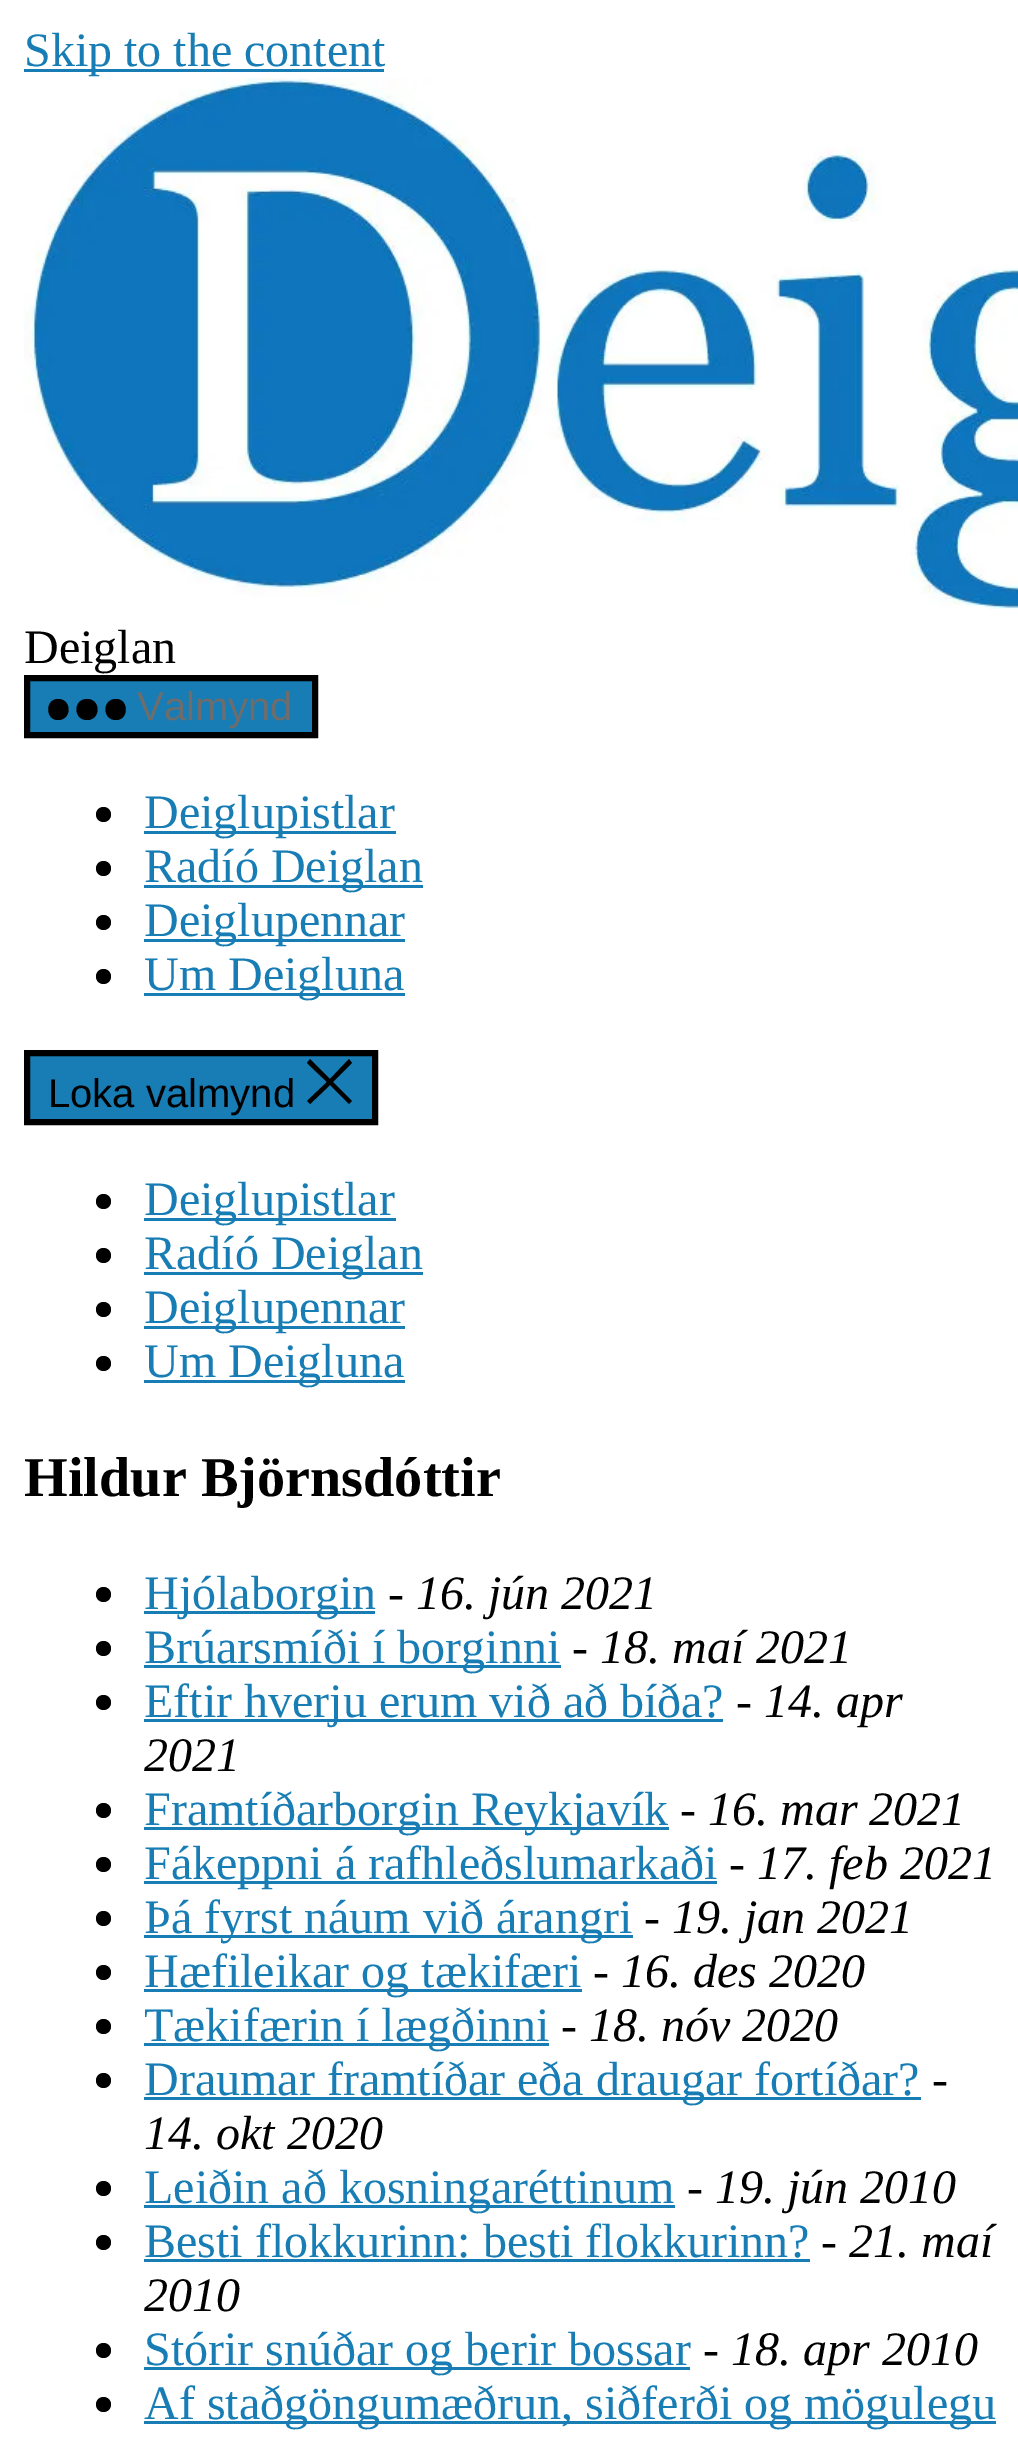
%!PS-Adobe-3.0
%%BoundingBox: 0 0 1018 2460
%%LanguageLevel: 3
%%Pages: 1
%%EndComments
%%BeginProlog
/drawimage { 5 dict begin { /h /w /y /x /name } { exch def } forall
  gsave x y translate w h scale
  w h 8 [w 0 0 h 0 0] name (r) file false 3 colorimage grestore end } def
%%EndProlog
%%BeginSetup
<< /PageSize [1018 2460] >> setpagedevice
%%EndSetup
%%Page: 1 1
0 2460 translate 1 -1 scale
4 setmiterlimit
1 setgray
0 0 1018 2460 rectfill
0.09 0.49 0.706 setrgbcolor
24 69 360 3 rectfill
(images/1.raw) 24 78 994 531 drawimage
newpath 27 678 moveto 315 678 lineto 315 735 lineto 27 735 lineto closepath gsave fill grestore
0 setgray
6 setlinewidth
stroke
newpath 58 720 moveto 45 720 45 699 58 699 curveto 72 699 72 720 58 720 curveto closepath 87 720 moveto 73 720 73 699 87 699 curveto 101 699 101 720 87 720 curveto closepath 116 720 moveto 102 720 102 699 116 699 curveto 129 699 129 720 116 720 curveto closepath eofill
newpath 103.5 814.5 7.5 0 360 arc closepath fill
0.09 0.49 0.706 setrgbcolor
144 831 252 3 rectfill
0 setgray
newpath 103.5 868.5 7.5 0 360 arc closepath fill
0.09 0.49 0.706 setrgbcolor
144 885 279 3 rectfill
0 setgray
newpath 103.5 922.5 7.5 0 360 arc closepath fill
0.09 0.49 0.706 setrgbcolor
144 939 261 3 rectfill
0 setgray
newpath 103.5 976.5 7.5 0 360 arc closepath fill
0.09 0.49 0.706 setrgbcolor
144 993 261 3 rectfill
newpath 27 1053 moveto 375 1053 lineto 375 1122 lineto 27 1122 lineto closepath gsave fill grestore
0 setgray
stroke
newpath 327 1082 moveto 307 1063 lineto 310 1059 lineto 330 1079 lineto 349 1059 lineto 352 1063 lineto 333 1082 lineto 352 1101 lineto 349 1104 lineto 330 1085 lineto 310 1104 lineto 307 1101 lineto closepath eofill
newpath 103.5 1201.5 7.5 0 360 arc closepath fill
0.09 0.49 0.706 setrgbcolor
144 1218 252 3 rectfill
0 setgray
newpath 103.5 1255.5 7.5 0 360 arc closepath fill
0.09 0.49 0.706 setrgbcolor
144 1272 279 3 rectfill
0 setgray
newpath 103.5 1309.5 7.5 0 360 arc closepath fill
0.09 0.49 0.706 setrgbcolor
144 1326 261 3 rectfill
0 setgray
newpath 103.5 1363.5 7.5 0 360 arc closepath fill
0.09 0.49 0.706 setrgbcolor
144 1380 261 3 rectfill
0 setgray
newpath 103.5 1594.5 7.5 0 360 arc closepath fill
0.09 0.49 0.706 setrgbcolor
144 1611 231 3 rectfill
0 setgray
newpath 103.5 1648.5 7.5 0 360 arc closepath fill
0.09 0.49 0.706 setrgbcolor
144 1665 417 3 rectfill
0 setgray
newpath 103.5 1702.5 7.5 0 360 arc closepath fill
0.09 0.49 0.706 setrgbcolor
144 1719 579 3 rectfill
0 setgray
newpath 103.5 1810.5 7.5 0 360 arc closepath fill
0.09 0.49 0.706 setrgbcolor
144 1827 525 3 rectfill
0 setgray
newpath 103.5 1864.5 7.5 0 360 arc closepath fill
0.09 0.49 0.706 setrgbcolor
144 1881 573 3 rectfill
0 setgray
newpath 103.5 1918.5 7.5 0 360 arc closepath fill
0.09 0.49 0.706 setrgbcolor
144 1935 489 3 rectfill
0 setgray
newpath 103.5 1972.5 7.5 0 360 arc closepath fill
0.09 0.49 0.706 setrgbcolor
144 1989 438 3 rectfill
0 setgray
newpath 103.5 2026.5 7.5 0 360 arc closepath fill
0.09 0.49 0.706 setrgbcolor
144 2043 405 3 rectfill
0 setgray
newpath 103.5 2080.5 7.5 0 360 arc closepath fill
0.09 0.49 0.706 setrgbcolor
144 2097 777 3 rectfill
0 setgray
newpath 103.5 2188.5 7.5 0 360 arc closepath fill
0.09 0.49 0.706 setrgbcolor
144 2205 531 3 rectfill
0 setgray
newpath 103.5 2242.5 7.5 0 360 arc closepath fill
0.09 0.49 0.706 setrgbcolor
144 2259 666 3 rectfill
0 setgray
newpath 103.5 2350.5 7.5 0 360 arc closepath fill
0.09 0.49 0.706 setrgbcolor
144 2367 546 3 rectfill
0 setgray
newpath 103.5 2404.5 7.5 0 360 arc closepath fill
0.09 0.49 0.706 setrgbcolor
144 2421 852 3 rectfill
/LiberationSerif-Regular [48 0 0 -48 0 0] selectfont
24 66 moveto (Skip to the content) show
0 setgray
24 663 moveto (Deiglan) show
/LiberationSans-Regular [40 0 0 -40 0 0] selectfont
0.427 setgray
137 720 moveto (Valmynd) show
/LiberationSerif-Regular [48 0 0 -48 0 0] selectfont
0.09 0.49 0.706 setrgbcolor
144 828 moveto (Deiglupistlar) show
144 882 moveto (Radíó Deiglan) show
144 936 moveto (Deiglupennar) show
144 990 moveto (Um Deigluna) show
/LiberationSans-Regular [40 0 0 -40 0 0] selectfont
0 setgray
48 1107 moveto (Loka valmynd) show
/LiberationSerif-Regular [48 0 0 -48 0 0] selectfont
0.09 0.49 0.706 setrgbcolor
144 1215 moveto (Deiglupistlar) show
144 1269 moveto (Radíó Deiglan) show
144 1323 moveto (Deiglupennar) show
144 1377 moveto (Um Deigluna) show
/LiberationSerif-Bold [56.25 0 0 -56.25 0 0] selectfont
0 setgray
24 1496 moveto (Hildur Björnsdóttir) show
/LiberationSerif-Regular [48 0 0 -48 0 0] selectfont
0.09 0.49 0.706 setrgbcolor
144 1609 moveto (Hjólaborgin) show
0 setgray
388 1609 moveto (-) show
/LiberationSerif-Italic [48 0 0 -48 0 0] selectfont
416 1609 moveto (16. jún 2021) show
/LiberationSerif-Regular [48 0 0 -48 0 0] selectfont
0.09 0.49 0.706 setrgbcolor
144 1663 moveto (Brúarsmíði í borginni) show
0 setgray
572 1663 moveto (-) show
/LiberationSerif-Italic [48 0 0 -48 0 0] selectfont
600 1663 moveto (18. maí 2021) show
/LiberationSerif-Regular [48 0 0 -48 0 0] selectfont
0.09 0.49 0.706 setrgbcolor
144 1717 moveto (Eftir hverju erum við að bíða?) show
0 setgray
736 1717 moveto (-) show
/LiberationSerif-Italic [48 0 0 -48 0 0] selectfont
764 1717 moveto (14. apr) show
144 1771 moveto (2021) show
/LiberationSerif-Regular [48 0 0 -48 0 0] selectfont
0.09 0.49 0.706 setrgbcolor
144 1825 moveto (Framtíðarborgin Reykjavík) show
0 setgray
680 1825 moveto (-) show
/LiberationSerif-Italic [48 0 0 -48 0 0] selectfont
708 1825 moveto (16. mar 2021) show
/LiberationSerif-Regular [48 0 0 -48 0 0] selectfont
0.09 0.49 0.706 setrgbcolor
144 1879 moveto (Fákeppni á rafhleðslumarkaði) show
0 setgray
729 1879 moveto (-) show
/LiberationSerif-Italic [48 0 0 -48 0 0] selectfont
757 1879 moveto (17. feb 2021) show
/LiberationSerif-Regular [48 0 0 -48 0 0] selectfont
0.09 0.49 0.706 setrgbcolor
144 1933 moveto (Þá fyrst náum við árangri) show
0 setgray
644 1933 moveto (-) show
/LiberationSerif-Italic [48 0 0 -48 0 0] selectfont
672 1933 moveto (19. jan 2021) show
/LiberationSerif-Regular [48 0 0 -48 0 0] selectfont
0.09 0.49 0.706 setrgbcolor
144 1987 moveto (Hæfileikar og tækifæri) show
0 setgray
593 1987 moveto (-) show
/LiberationSerif-Italic [48 0 0 -48 0 0] selectfont
621 1987 moveto (16. des 2020) show
/LiberationSerif-Regular [48 0 0 -48 0 0] selectfont
0.09 0.49 0.706 setrgbcolor
144 2041 moveto (Tækifærin í lægðinni) show
0 setgray
561 2041 moveto (-) show
/LiberationSerif-Italic [48 0 0 -48 0 0] selectfont
589 2041 moveto (18. nóv 2020) show
/LiberationSerif-Regular [48 0 0 -48 0 0] selectfont
0.09 0.49 0.706 setrgbcolor
144 2095 moveto (Draumar framtíðar eða draugar fortíðar?) show
0 setgray
932 2095 moveto (-) show
/LiberationSerif-Italic [48 0 0 -48 0 0] selectfont
144 2149 moveto (14. okt 2020) show
/LiberationSerif-Regular [48 0 0 -48 0 0] selectfont
0.09 0.49 0.706 setrgbcolor
144 2203 moveto (Leiðin að kosningaréttinum) show
0 setgray
687 2203 moveto (-) show
/LiberationSerif-Italic [48 0 0 -48 0 0] selectfont
715 2203 moveto (19. jún 2010) show
/LiberationSerif-Regular [48 0 0 -48 0 0] selectfont
0.09 0.49 0.706 setrgbcolor
144 2257 moveto (Besti flokkurinn: besti flokkurinn?) show
0 setgray
821 2257 moveto (-) show
/LiberationSerif-Italic [48 0 0 -48 0 0] selectfont
849 2257 moveto (21. maí) show
144 2311 moveto (2010) show
/LiberationSerif-Regular [48 0 0 -48 0 0] selectfont
0.09 0.49 0.706 setrgbcolor
144 2365 moveto (Stórir snúðar og berir bossar) show
0 setgray
703 2365 moveto (-) show
/LiberationSerif-Italic [48 0 0 -48 0 0] selectfont
731 2365 moveto (18. apr 2010) show
/LiberationSerif-Regular [48 0 0 -48 0 0] selectfont
0.09 0.49 0.706 setrgbcolor
144 2419 moveto (Af staðgöngumæðrun, siðferði og mögulegu) show
showpage
%%EOF
